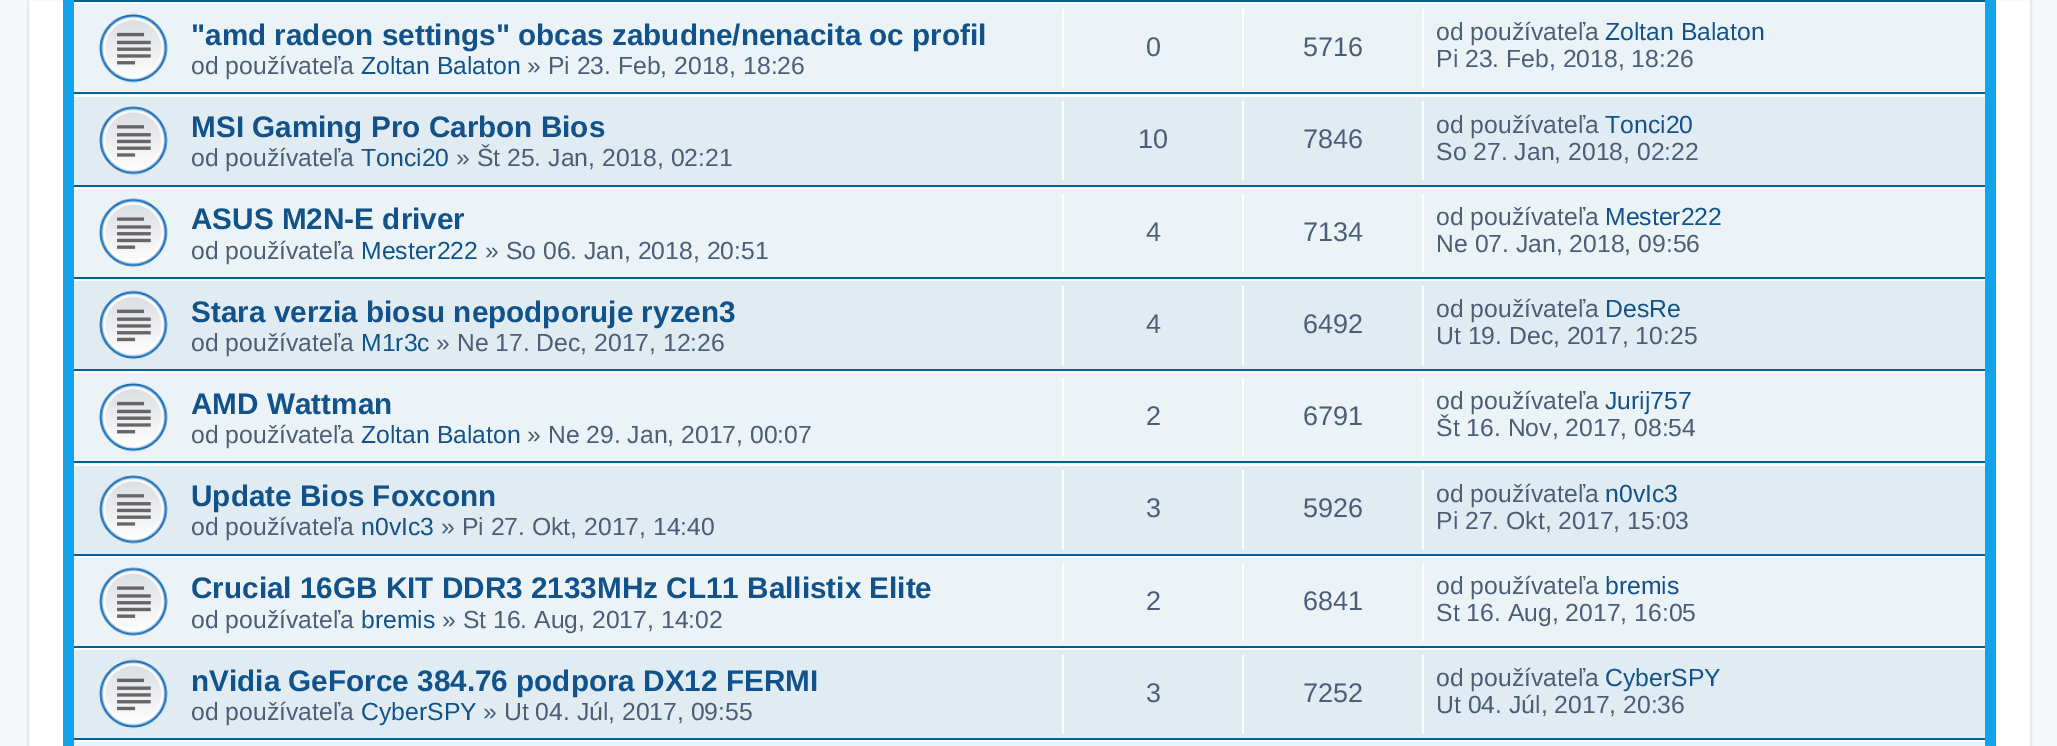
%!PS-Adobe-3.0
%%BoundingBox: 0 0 2057 746
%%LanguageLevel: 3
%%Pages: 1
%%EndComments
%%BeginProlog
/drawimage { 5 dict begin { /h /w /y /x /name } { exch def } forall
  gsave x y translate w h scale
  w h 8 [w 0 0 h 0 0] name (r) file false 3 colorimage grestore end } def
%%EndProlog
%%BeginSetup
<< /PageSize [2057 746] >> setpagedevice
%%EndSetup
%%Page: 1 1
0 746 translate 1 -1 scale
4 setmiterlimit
0.961 0.969 0.98 setrgbcolor
0 0 2057 746 rectfill
1 setgray
newpath 28 -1 moveto 2031 -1 lineto 2031 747 lineto 28 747 lineto closepath gsave fill grestore
0.902 0.914 0.929 setrgbcolor
2 setlinewidth
stroke
0.071 0.639 0.922 setrgbcolor
63 0 1933 746 rectfill
0 0.376 0.561 setrgbcolor
74 0 1911 2 rectfill
0.925 0.953 0.969 setrgbcolor
74 4 1911 91 rectfill
1 setgray
74 2 1911 2 rectfill
0 0.376 0.561 setrgbcolor
74 92 1911 2 rectfill
(images/1.raw) 99 13 69 70 drawimage
1 setgray
1062 9 2 79 rectfill
1242 9 2 79 rectfill
1422 9 2 79 rectfill
0.882 0.922 0.949 setrgbcolor
74 97 1911 88 rectfill
1 setgray
74 95 1911 2 rectfill
0 0.376 0.561 setrgbcolor
74 185 1911 2 rectfill
(images/2.raw) 99 106 69 69 drawimage
1 setgray
1062 101 2 79 rectfill
1242 101 2 79 rectfill
1422 101 2 79 rectfill
0.925 0.953 0.969 setrgbcolor
74 189 1911 88 rectfill
1 setgray
74 187 1911 2 rectfill
0 0.376 0.561 setrgbcolor
74 277 1911 2 rectfill
(images/3.raw) 99 198 69 69 drawimage
1 setgray
1062 194 2 78 rectfill
1242 194 2 78 rectfill
1422 194 2 78 rectfill
0.882 0.922 0.949 setrgbcolor
74 281 1911 88 rectfill
1 setgray
74 279 1911 2 rectfill
0 0.376 0.561 setrgbcolor
74 369 1911 2 rectfill
(images/4.raw) 99 290 69 70 drawimage
1 setgray
1062 286 2 79 rectfill
1242 286 2 79 rectfill
1422 286 2 79 rectfill
0.925 0.953 0.969 setrgbcolor
74 373 1911 91 rectfill
1 setgray
74 371 1911 2 rectfill
0 0.376 0.561 setrgbcolor
74 461 1911 2 rectfill
(images/1.raw) 99 382 69 70 drawimage
1 setgray
1062 378 2 79 rectfill
1242 378 2 79 rectfill
1422 378 2 79 rectfill
0.882 0.922 0.949 setrgbcolor
74 466 1911 88 rectfill
1 setgray
74 464 1911 2 rectfill
0 0.376 0.561 setrgbcolor
74 554 1911 2 rectfill
(images/2.raw) 99 475 69 69 drawimage
1 setgray
1062 470 2 79 rectfill
1242 470 2 79 rectfill
1422 470 2 79 rectfill
0.925 0.953 0.969 setrgbcolor
74 558 1911 88 rectfill
1 setgray
74 556 1911 2 rectfill
0 0.376 0.561 setrgbcolor
74 646 1911 2 rectfill
(images/3.raw) 99 567 69 69 drawimage
1 setgray
1062 563 2 78 rectfill
1242 563 2 78 rectfill
1422 563 2 78 rectfill
0.882 0.922 0.949 setrgbcolor
74 650 1911 88 rectfill
1 setgray
74 648 1911 2 rectfill
0 0.376 0.561 setrgbcolor
74 738 1911 2 rectfill
(images/4.raw) 99 659 69 70 drawimage
1 setgray
1062 655 2 79 rectfill
1242 655 2 79 rectfill
1422 655 2 79 rectfill
0.925 0.953 0.969 setrgbcolor
74 742 1911 4 rectfill
1 setgray
74 740 1911 2 rectfill
/LiberationSans-Bold [29.7 0 0 -29.7 0 0] selectfont
0.063 0.322 0.537 setrgbcolor
191 45 moveto ("amd radeon settings" obcas zabudne/nenacita oc profil) show
/LiberationSans-Regular [24.75 0 0 -24.75 0 0] selectfont
0.298 0.365 0.467 setrgbcolor
191 74 moveto (od používateľa) show
0.063 0.322 0.537 setrgbcolor
361 74 moveto (Zoltan Balaton) show
0.298 0.365 0.467 setrgbcolor
527 74 moveto (» Pi 23. Feb, 2018, 18:26) show
/LiberationSans-Regular [27 0 0 -27 0 0] selectfont
1146 56 moveto (0) show
1303 56 moveto (5716) show
/LiberationSans-Regular [24.75 0 0 -24.75 0 0] selectfont
1436 40 moveto (od používateľa) show
0.063 0.322 0.537 setrgbcolor
1605 40 moveto (Zoltan Balaton) show
0.298 0.365 0.467 setrgbcolor
1436 67 moveto (Pi 23. Feb, 2018, 18:26) show
/LiberationSans-Bold [29.7 0 0 -29.7 0 0] selectfont
0.063 0.322 0.537 setrgbcolor
191 137 moveto (MSI Gaming Pro Carbon Bios) show
/LiberationSans-Regular [24.75 0 0 -24.75 0 0] selectfont
0.298 0.365 0.467 setrgbcolor
191 166 moveto (od používateľa) show
0.063 0.322 0.537 setrgbcolor
361 166 moveto (Tonci20) show
0.298 0.365 0.467 setrgbcolor
456 166 moveto (» Št 25. Jan, 2018, 02:21) show
/LiberationSans-Regular [27 0 0 -27 0 0] selectfont
1138 148 moveto (10) show
1303 148 moveto (7846) show
/LiberationSans-Regular [24.75 0 0 -24.75 0 0] selectfont
1436 133 moveto (od používateľa) show
0.063 0.322 0.537 setrgbcolor
1605 133 moveto (Tonci20) show
0.298 0.365 0.467 setrgbcolor
1436 160 moveto (So 27. Jan, 2018, 02:22) show
/LiberationSans-Bold [29.7 0 0 -29.7 0 0] selectfont
0.063 0.322 0.537 setrgbcolor
191 229 moveto (ASUS M2N-E driver) show
/LiberationSans-Regular [24.75 0 0 -24.75 0 0] selectfont
0.298 0.365 0.467 setrgbcolor
191 259 moveto (od používateľa) show
0.063 0.322 0.537 setrgbcolor
361 259 moveto (Mester222) show
0.298 0.365 0.467 setrgbcolor
485 259 moveto (» So 06. Jan, 2018, 20:51) show
/LiberationSans-Regular [27 0 0 -27 0 0] selectfont
1146 241 moveto (4) show
1303 241 moveto (7134) show
/LiberationSans-Regular [24.75 0 0 -24.75 0 0] selectfont
1436 225 moveto (od používateľa) show
0.063 0.322 0.537 setrgbcolor
1605 225 moveto (Mester222) show
0.298 0.365 0.467 setrgbcolor
1436 252 moveto (Ne 07. Jan, 2018, 09:56) show
/LiberationSans-Bold [29.7 0 0 -29.7 0 0] selectfont
0.063 0.322 0.537 setrgbcolor
191 322 moveto (Stara verzia biosu nepodporuje ryzen3) show
/LiberationSans-Regular [24.75 0 0 -24.75 0 0] selectfont
0.298 0.365 0.467 setrgbcolor
191 351 moveto (od používateľa) show
0.063 0.322 0.537 setrgbcolor
361 351 moveto (M1r3c) show
0.298 0.365 0.467 setrgbcolor
436 351 moveto (» Ne 17. Dec, 2017, 12:26) show
/LiberationSans-Regular [27 0 0 -27 0 0] selectfont
1146 333 moveto (4) show
1303 333 moveto (6492) show
/LiberationSans-Regular [24.75 0 0 -24.75 0 0] selectfont
1436 317 moveto (od používateľa) show
0.063 0.322 0.537 setrgbcolor
1605 317 moveto (DesRe) show
0.298 0.365 0.467 setrgbcolor
1436 344 moveto (Ut 19. Dec, 2017, 10:25) show
/LiberationSans-Bold [29.7 0 0 -29.7 0 0] selectfont
0.063 0.322 0.537 setrgbcolor
191 414 moveto (AMD Wattman) show
/LiberationSans-Regular [24.75 0 0 -24.75 0 0] selectfont
0.298 0.365 0.467 setrgbcolor
191 443 moveto (od používateľa) show
0.063 0.322 0.537 setrgbcolor
361 443 moveto (Zoltan Balaton) show
0.298 0.365 0.467 setrgbcolor
527 443 moveto (» Ne 29. Jan, 2017, 00:07) show
/LiberationSans-Regular [27 0 0 -27 0 0] selectfont
1146 425 moveto (2) show
1303 425 moveto (6791) show
/LiberationSans-Regular [24.75 0 0 -24.75 0 0] selectfont
1436 409 moveto (od používateľa) show
0.063 0.322 0.537 setrgbcolor
1605 409 moveto (Jurij757) show
0.298 0.365 0.467 setrgbcolor
1436 436 moveto (Št 16. Nov, 2017, 08:54) show
/LiberationSans-Bold [29.7 0 0 -29.7 0 0] selectfont
0.063 0.322 0.537 setrgbcolor
191 506 moveto (Update Bios Foxconn) show
/LiberationSans-Regular [24.75 0 0 -24.75 0 0] selectfont
0.298 0.365 0.467 setrgbcolor
191 535 moveto (od používateľa) show
0.063 0.322 0.537 setrgbcolor
361 535 moveto (n0vIc3) show
0.298 0.365 0.467 setrgbcolor
441 535 moveto (» Pi 27. Okt, 2017, 14:40) show
/LiberationSans-Regular [27 0 0 -27 0 0] selectfont
1146 517 moveto (3) show
1303 517 moveto (5926) show
/LiberationSans-Regular [24.75 0 0 -24.75 0 0] selectfont
1436 502 moveto (od používateľa) show
0.063 0.322 0.537 setrgbcolor
1605 502 moveto (n0vIc3) show
0.298 0.365 0.467 setrgbcolor
1436 529 moveto (Pi 27. Okt, 2017, 15:03) show
/LiberationSans-Bold [29.7 0 0 -29.7 0 0] selectfont
0.063 0.322 0.537 setrgbcolor
191 598 moveto (Crucial 16GB KIT DDR3 2133MHz CL11 Ballistix Elite) show
/LiberationSans-Regular [24.75 0 0 -24.75 0 0] selectfont
0.298 0.365 0.467 setrgbcolor
191 628 moveto (od používateľa) show
0.063 0.322 0.537 setrgbcolor
361 628 moveto (bremis) show
0.298 0.365 0.467 setrgbcolor
442 628 moveto (» St 16. Aug, 2017, 14:02) show
/LiberationSans-Regular [27 0 0 -27 0 0] selectfont
1146 610 moveto (2) show
1303 610 moveto (6841) show
/LiberationSans-Regular [24.75 0 0 -24.75 0 0] selectfont
1436 594 moveto (od používateľa) show
0.063 0.322 0.537 setrgbcolor
1605 594 moveto (bremis) show
0.298 0.365 0.467 setrgbcolor
1436 621 moveto (St 16. Aug, 2017, 16:05) show
/LiberationSans-Bold [29.7 0 0 -29.7 0 0] selectfont
0.063 0.322 0.537 setrgbcolor
191 691 moveto (nVidia GeForce 384.76 podpora DX12 FERMI) show
/LiberationSans-Regular [24.75 0 0 -24.75 0 0] selectfont
0.298 0.365 0.467 setrgbcolor
191 720 moveto (od používateľa) show
0.063 0.322 0.537 setrgbcolor
361 720 moveto (CyberSPY) show
0.298 0.365 0.467 setrgbcolor
483 720 moveto (» Ut 04. Júl, 2017, 09:55) show
/LiberationSans-Regular [27 0 0 -27 0 0] selectfont
1146 702 moveto (3) show
1303 702 moveto (7252) show
/LiberationSans-Regular [24.75 0 0 -24.75 0 0] selectfont
1436 686 moveto (od používateľa) show
0.063 0.322 0.537 setrgbcolor
1605 686 moveto (CyberSPY) show
0.298 0.365 0.467 setrgbcolor
1436 713 moveto (Ut 04. Júl, 2017, 20:36) show
showpage
%%EOF
